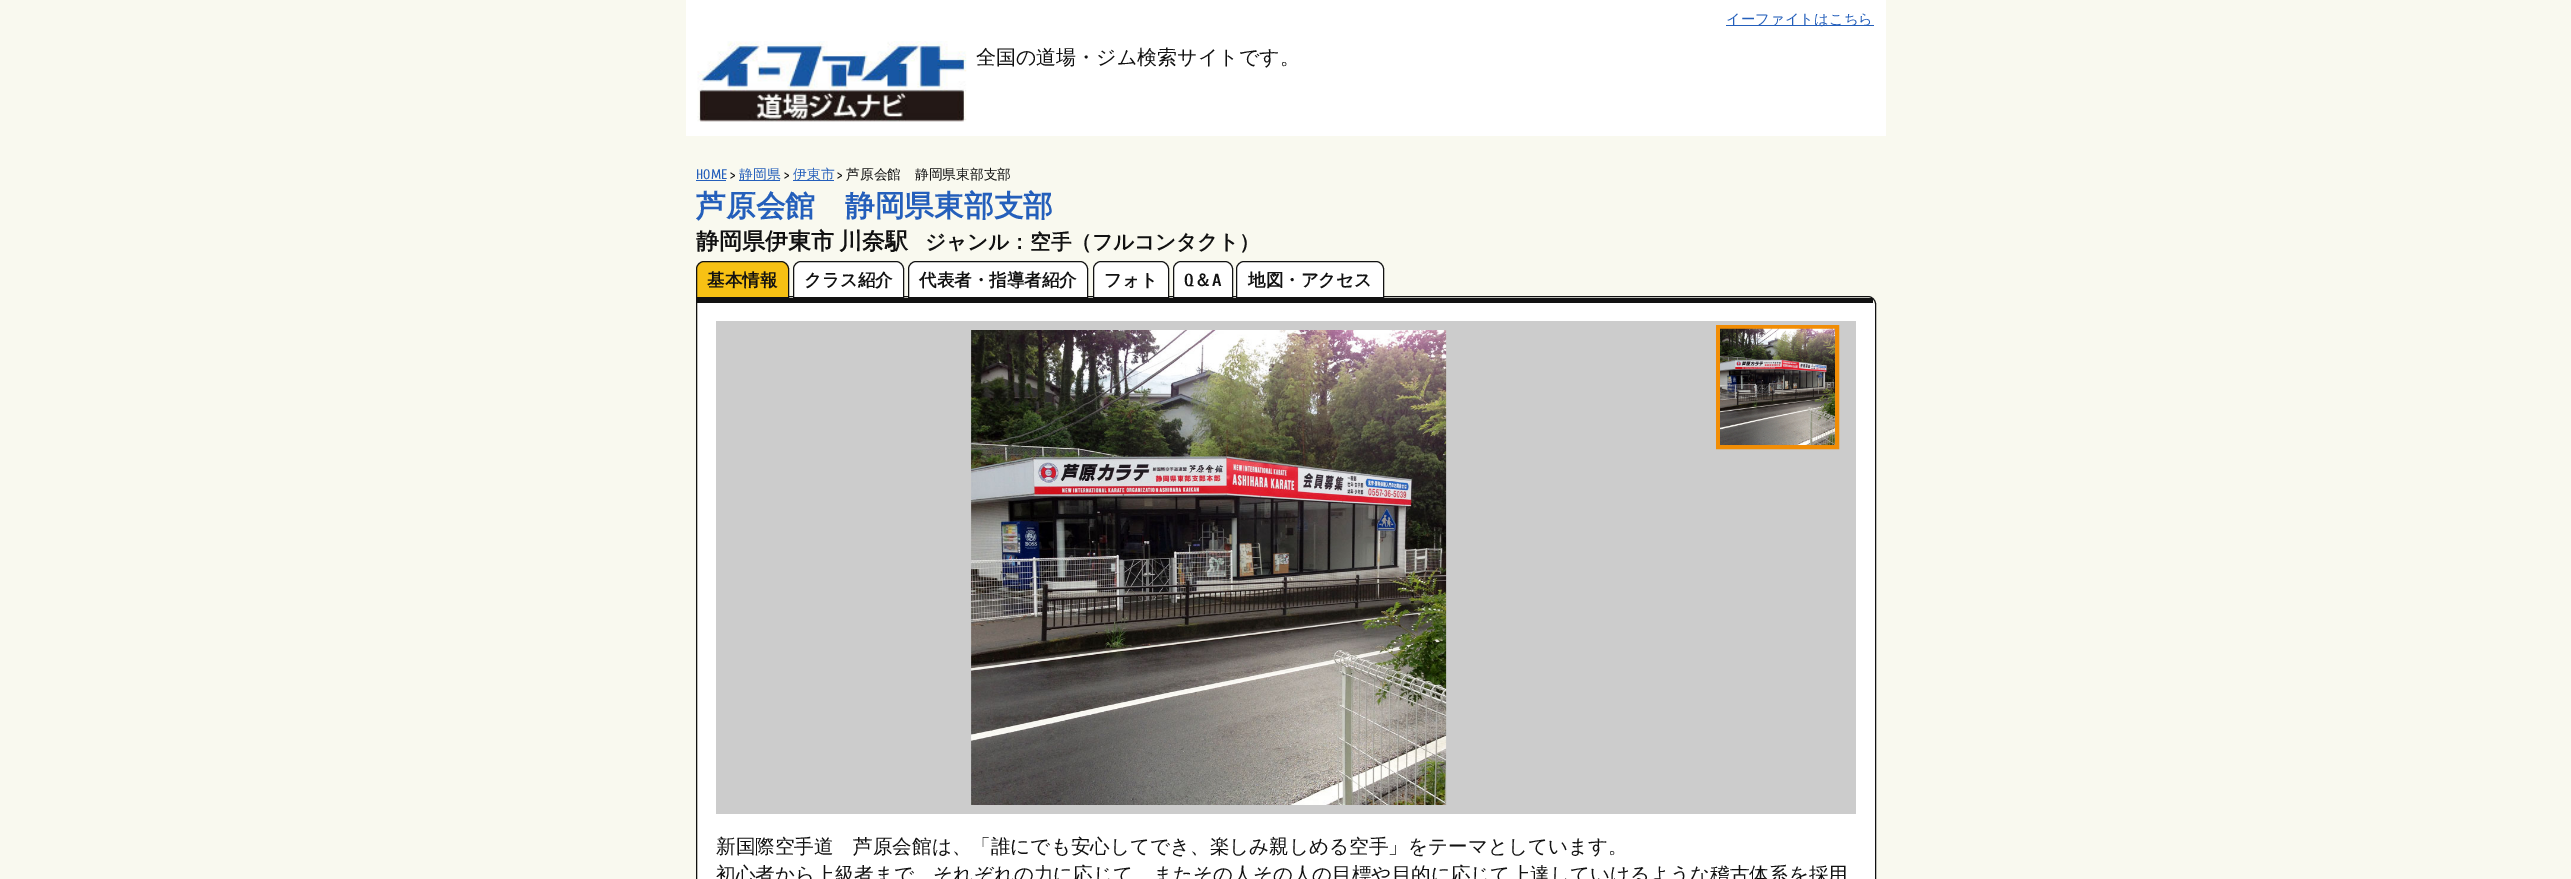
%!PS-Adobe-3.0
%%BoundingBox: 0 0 2571 879
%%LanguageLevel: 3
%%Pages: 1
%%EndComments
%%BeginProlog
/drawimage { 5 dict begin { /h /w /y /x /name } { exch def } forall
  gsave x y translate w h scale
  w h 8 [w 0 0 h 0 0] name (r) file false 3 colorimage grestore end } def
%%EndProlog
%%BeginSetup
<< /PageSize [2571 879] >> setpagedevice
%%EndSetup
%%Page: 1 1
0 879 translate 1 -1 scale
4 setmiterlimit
0.976 0.976 0.937 setrgbcolor
0 0 2571 879 rectfill
1 setgray
686 0 1200 136 rectfill
0.141 0.373 0.733 setrgbcolor
1726 25 148 1 rectfill
(images/1.raw) 697 41 270 81 drawimage
696 180 30 1 rectfill
739 180 41 1 rectfill
793 180 41 1 rectfill
1 setgray
newpath 698 302 moveto 1869 302 lineto 1872 302 1875 303 1875 304 curveto 1875 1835 lineto 1875 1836 1872 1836 1869 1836 curveto 704 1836 lineto 700 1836 698 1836 698 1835 curveto closepath fill
0.067 setgray
newpath 696.5 296.5 moveto 1868 296.5 lineto 1872 296.5 1875.5 300 1875.5 304 curveto 1875.5 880 lineto 1875.5 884 1872 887.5 1868 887.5 curveto 704 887.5 lineto 700 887.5 696.5 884 696.5 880 curveto closepath stroke
0.969 0.757 0.078 setrgbcolor
newpath 704 261.5 moveto 781 261.5 lineto 785 261.5 788.5 265 788.5 269 curveto 788.5 297.5 lineto 696.5 297.5 lineto 696.5 269 lineto 696.5 265 700 261.5 704 261.5 curveto closepath gsave fill grestore
0.067 setgray
stroke
1 setgray
newpath 801 261.5 moveto 896 261.5 lineto 900 261.5 903.5 265 903.5 269 curveto 903.5 297.5 lineto 793.5 297.5 lineto 793.5 269 lineto 793.5 265 797 261.5 801 261.5 curveto closepath gsave fill grestore
0.067 setgray
stroke
1 setgray
newpath 916 261.5 moveto 1080 261.5 lineto 1084 261.5 1087.5 265 1087.5 269 curveto 1087.5 297.5 lineto 908.5 297.5 lineto 908.5 269 lineto 908.5 265 912 261.5 916 261.5 curveto closepath gsave fill grestore
0.067 setgray
stroke
1 setgray
newpath 1101 261.5 moveto 1161 261.5 lineto 1165 261.5 1168.5 265 1168.5 269 curveto 1168.5 297.5 lineto 1093.5 297.5 lineto 1093.5 269 lineto 1093.5 265 1097 261.5 1101 261.5 curveto closepath gsave fill grestore
0.067 setgray
stroke
1 setgray
newpath 1181 261.5 moveto 1225 261.5 lineto 1229 261.5 1232.5 265 1232.5 269 curveto 1232.5 297.5 lineto 1173.5 297.5 lineto 1173.5 269 lineto 1173.5 265 1177 261.5 1181 261.5 curveto closepath gsave fill grestore
0.067 setgray
stroke
1 setgray
newpath 1244 261.5 moveto 1376 261.5 lineto 1380 261.5 1383.5 265 1383.5 269 curveto 1383.5 297.5 lineto 1236.5 297.5 lineto 1236.5 269 lineto 1236.5 265 1240 261.5 1244 261.5 curveto closepath gsave fill grestore
0.067 setgray
stroke
696 298 1177 5 rectfill
0.8 setgray
716 321 1140 493 rectfill
(images/2.raw) 971 330 476 475 drawimage
0.945 0.553 0.02 setrgbcolor
4 setlinewidth
1718 327 119 120 rectstroke
(images/3.raw) 1720 328 115 117 drawimage
/WenQuanYiZenHei-Medium [14.4 0 0 -14.4 0 0] selectfont
0.141 0.373 0.733 setrgbcolor
1726 24 moveto (イーファイトはこちら) show
/WenQuanYiZenHei-Medium [20 0 0 -20 0 0] selectfont
0.067 setgray
976 64 moveto (全国の道場・ジム検索サイトです。) show
/Cuprum-Regular [13.75 0 0 -13.75 0 0] selectfont
0.141 0.373 0.733 setrgbcolor
696 179 moveto (HOME) show
0.067 setgray
730 179 moveto (>) show
/WenQuanYiZenHei-Medium [13.75 0 0 -13.75 0 0] selectfont
0.141 0.373 0.733 setrgbcolor
739 179 moveto (静岡県) show
/Cuprum-Regular [13.75 0 0 -13.75 0 0] selectfont
0.067 setgray
784 179 moveto (>) show
/WenQuanYiZenHei-Medium [13.75 0 0 -13.75 0 0] selectfont
0.141 0.373 0.733 setrgbcolor
793 179 moveto (伊東市) show
/Cuprum-Regular [13.75 0 0 -13.75 0 0] selectfont
0.067 setgray
837 179 moveto (>) show
/WenQuanYiZenHei-Medium [13.75 0 0 -13.75 0 0] selectfont
846 179 moveto (芦原会館　静岡県東部支部) show
/WenQuanYiZenHei-Bold [29.75 0 0 -29.75 0 0] selectfont
0.141 0.373 0.733 setrgbcolor
696 216 moveto (芦原会館　静岡県東部支部) show
/WenQuanYiZenHei-Bold [23 0 0 -23 0 0] selectfont
0.067 setgray
696 249 moveto (静岡県伊東市) show
839 249 moveto (川奈駅) show
/WenQuanYiZenHei-Bold [20.6 0 0 -20.6 0 0] selectfont
925 249 moveto (ジャンル：空手（フルコンタクト）) show
/WenQuanYiZenHei-Bold [17.5 0 0 -17.5 0 0] selectfont
707 286 moveto (基本情報) show
804 286 moveto (クラス紹介) show
919 286 moveto (代表者・指導者紹介) show
1104 286 moveto (フォト) show
/Cuprum-Bold [17.5 0 0 -17.5 0 0] selectfont
1184 286 moveto (Q) show
/WenQuanYiZenHei-Bold [17.5 0 0 -17.5 0 0] selectfont
1194 286 moveto (＆) show
/Cuprum-Bold [17.5 0 0 -17.5 0 0] selectfont
1212 286 moveto (A) show
/WenQuanYiZenHei-Bold [17.5 0 0 -17.5 0 0] selectfont
1248 286 moveto (地図・アクセス) show
/WenQuanYiZenHei-Medium [19.6 0 0 -19.6 0 0] selectfont
716 853 moveto (新国際空手道　芦原会館は、「誰にでも安心してでき、楽しみ親しめる空手」をテーマとしています。) show
716 881 moveto (初心者から上級者まで、それぞれの力に応じて、またその人その人の目標や目的に応じて上達していけるような稽古体系を採用) show
showpage
%%EOF
